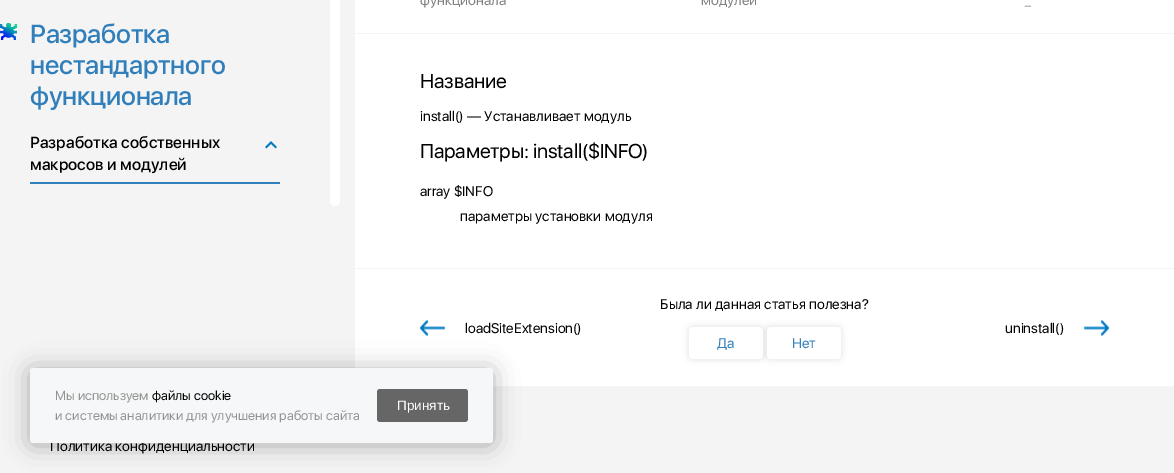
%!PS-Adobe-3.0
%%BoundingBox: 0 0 1174 473
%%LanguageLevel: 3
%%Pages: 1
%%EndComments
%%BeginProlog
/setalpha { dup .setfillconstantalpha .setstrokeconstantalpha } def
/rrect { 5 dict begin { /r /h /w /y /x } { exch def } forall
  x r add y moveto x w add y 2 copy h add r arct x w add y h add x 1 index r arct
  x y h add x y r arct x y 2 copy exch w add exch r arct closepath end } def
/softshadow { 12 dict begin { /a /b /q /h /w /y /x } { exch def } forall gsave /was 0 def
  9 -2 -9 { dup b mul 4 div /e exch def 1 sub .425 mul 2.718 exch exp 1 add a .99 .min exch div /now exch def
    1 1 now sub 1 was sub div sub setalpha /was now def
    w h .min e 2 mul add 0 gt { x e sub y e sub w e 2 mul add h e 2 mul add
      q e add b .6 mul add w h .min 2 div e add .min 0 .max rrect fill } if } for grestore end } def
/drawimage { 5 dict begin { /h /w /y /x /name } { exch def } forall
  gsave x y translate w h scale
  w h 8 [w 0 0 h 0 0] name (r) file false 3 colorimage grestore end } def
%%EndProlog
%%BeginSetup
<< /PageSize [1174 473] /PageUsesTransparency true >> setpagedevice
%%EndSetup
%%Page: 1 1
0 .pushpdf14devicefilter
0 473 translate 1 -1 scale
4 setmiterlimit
0.957 setgray
0 0 1174 473 rectfill
(images/1.raw) 0 23 17 17 drawimage
0.192 0.498 0.729 setrgbcolor
30 182 250 2 rectfill
(images/2.raw) 265 141 12 8 drawimage
1 setgray
330 -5 10 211 5 rrect fill
355 0 819 386 rectfill
0.957 setgray
355 33 819 1 rectfill
355 268 819 1 rectfill
(images/3.raw) 420 320 25 16 drawimage
0 setgray
688 326 76 34 5 3 0.1 softshadow
1 setgray
689 327 74 32 4 rrect fill
0 setgray
766 326 76 34 5 3 0.1 softshadow
1 setgray
767 327 74 32 4 rrect fill
(images/4.raw) 1084 320 25 16 drawimage
0 setgray
30 370 463 75 3 12.5 0.3 softshadow
/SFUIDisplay-Medium [26 0 0 -26 0 0] selectfont
0.192 0.498 0.729 setrgbcolor
30 43 moveto -0.25 0 (Разработка) ashow
30 74 moveto -0.25 0 (нестандартного) ashow
30 105 moveto -0.25 0 (функционала) ashow
/SFUIDisplay-Medium [16 0 0 -16 0 0] selectfont
0 setgray
30 148 moveto (Разработка собственных) show
30 170 moveto (макросов и модулей) show
/SFUIDisplay-Regular [14 0 0 -14 0 0] selectfont
0.502 setgray
420 5 moveto (функционала) show
701 5 moveto (модулей) show
1025 5 moveto (_) show
/SFUIDisplay-Regular [20 0 0 -20 0 0] selectfont
0 setgray
420 88 moveto -0.2 0 (Название) ashow
/SFUIDisplay-Regular [14 0 0 -14 0 0] selectfont
420 121 moveto (install\(\) — Устанавливает модуль) show
/SFUIDisplay-Regular [20 0 0 -20 0 0] selectfont
420 158 moveto -0.2 0 (Параметры: install\($INFO\)) ashow
/SFUIDisplay-Regular [14 0 0 -14 0 0] selectfont
420 196 moveto (array $INFO) show
460 221 moveto (параметры установки модуля) show
465 333 moveto (loadSiteExtension\(\)) show
660 309 moveto (Была ли данная статья полезна?) show
0.192 0.498 0.729 setrgbcolor
717 348 moveto (Да) show
792 348 moveto (Нет) show
0 setgray
1005 333 moveto (uninstall\(\)) show
50 451 moveto (Политика конфиденциальности) show
0.965 0.969 0.973 setrgbcolor
30 368 463 75 3 rrect fill
0.4 setgray
377 389 91 33 3 rrect fill
/LiberationSans-Regular [13.5 0 0 -13.5 0 0] selectfont
1 setgray
397 410 moveto (Принять) show
/SFUIDisplay-Regular [13 0 0 -13 0 0] selectfont
0.576 setgray
55 420 moveto (и системы аналитики для улучшения работы сайта) show
0 setgray
152 400 moveto (файлы cookie) show
0.576 setgray
55 400 moveto (Мы используем) show
.poppdf14devicefilter showpage
%%EOF
